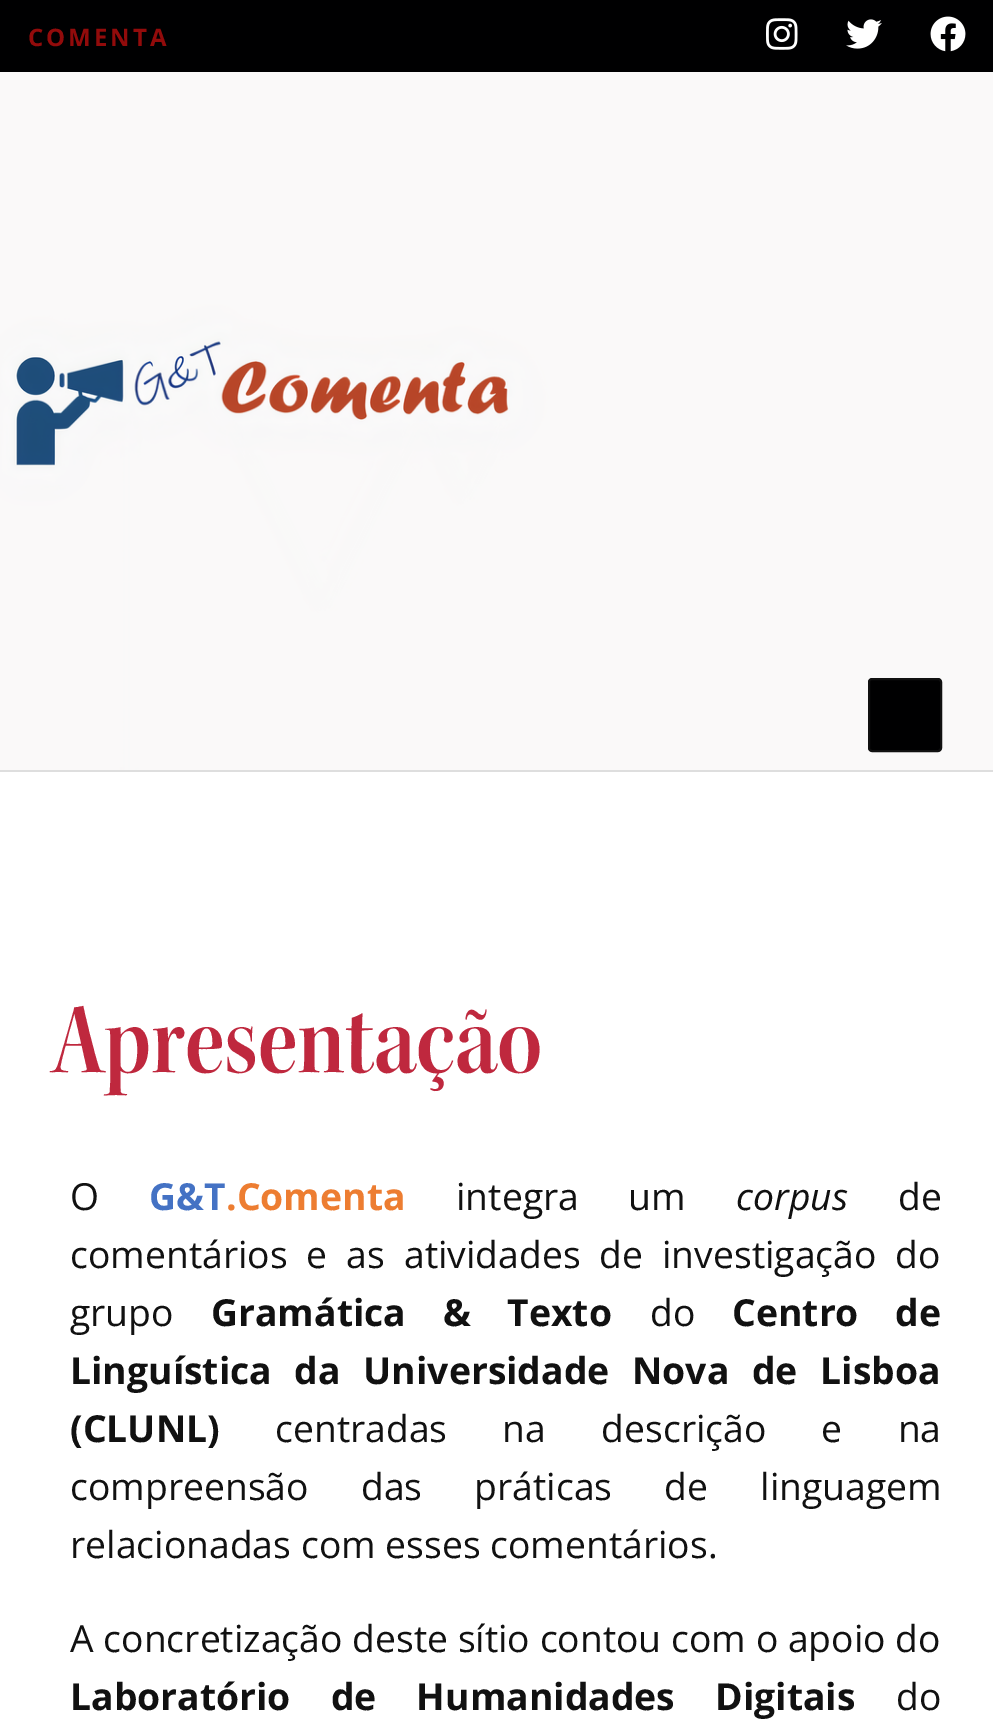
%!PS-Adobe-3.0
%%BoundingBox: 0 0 993 1733
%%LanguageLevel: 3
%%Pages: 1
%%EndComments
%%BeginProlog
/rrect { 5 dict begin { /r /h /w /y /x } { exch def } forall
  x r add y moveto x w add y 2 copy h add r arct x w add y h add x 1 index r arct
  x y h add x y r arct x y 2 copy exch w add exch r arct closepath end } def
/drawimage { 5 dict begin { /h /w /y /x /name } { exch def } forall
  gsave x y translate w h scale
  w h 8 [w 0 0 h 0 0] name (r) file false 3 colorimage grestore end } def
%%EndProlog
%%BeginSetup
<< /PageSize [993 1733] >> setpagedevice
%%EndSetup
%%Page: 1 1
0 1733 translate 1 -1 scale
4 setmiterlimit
1 setgray
0 0 993 1733 rectfill
0 0 0.004 setrgbcolor
0 0 993 72 rectfill
(images/1.raw) 766 18 32 32 drawimage
(images/2.raw) 846 19 36 30 drawimage
(images/3.raw) 930 16 36 36 drawimage
(images/4.raw) 0 72 993 698 drawimage
0.871 setgray
0 770 993 2 rectfill
0 0 0.004 setrgbcolor
869 679 72 72 3 rrect gsave fill grestore
0.067 setgray
2 setlinewidth
stroke
/OpenSans-Bold [24 0 0 -24 0 0] selectfont
0.573 0.043 0.043 setrgbcolor
28 46 moveto 3 0 (COMENTA) ashow
/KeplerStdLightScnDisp-SemiBold [104 0 0 -104 0 0] selectfont
0.749 0.157 0.243 setrgbcolor
52 1072 moveto (Apresentação) show
/OpenSans-Regular [37.3 0 0 -37.3 0 0] selectfont
0.067 setgray
70 1210 moveto (O) show
/OpenSans-Bold [37.3 0 0 -37.3 0 0] selectfont
0.267 0.447 0.769 setrgbcolor
149 1210 moveto (G&T) show
0.929 0.49 0.192 setrgbcolor
226 1210 moveto (.Comenta) show
/OpenSans-Regular [37.3 0 0 -37.3 0 0] selectfont
0.067 setgray
456 1210 moveto 40 0 32 (integra um) widthshow
/OpenSans-Italic [37.3 0 0 -37.3 0 0] selectfont
736 1210 moveto (corpus) show
/OpenSans-Regular [37.3 0 0 -37.3 0 0] selectfont
898 1210 moveto (de) show
70 1268 moveto 9.25 0 32 (comentários e as atividades de investigação do) widthshow
70 1326 moveto (grupo) show
/OpenSans-Bold [37.3 0 0 -37.3 0 0] selectfont
211 1326 moveto 27 0 32 (Gramática & Texto) widthshow
/OpenSans-Regular [37.3 0 0 -37.3 0 0] selectfont
650 1326 moveto (do) show
/OpenSans-Bold [37.3 0 0 -37.3 0 0] selectfont
732 1326 moveto 27 0 32 (Centro de) widthshow
70 1384 moveto 13 0 32 (Linguística da Universidade Nova de Lisboa) widthshow
70 1442 moveto (\(CLUNL\)) show
/OpenSans-Regular [37.3 0 0 -37.3 0 0] selectfont
275 1442 moveto 45.5 0 32 (centradas na descrição e na) widthshow
70 1500 moveto 42.5 0 32 (compreensão das práticas de linguagem) widthshow
70 1558 moveto (relacionadas com esses comentários.) show
70 1652 moveto (A concretização deste sítio contou com o apoio do) show
/OpenSans-Bold [37.3 0 0 -37.3 0 0] selectfont
70 1710 moveto 30.5 0 32 (Laboratório de Humanidades Digitais) widthshow
/OpenSans-Regular [37.3 0 0 -37.3 0 0] selectfont
896 1710 moveto (do) show
showpage
%%EOF
